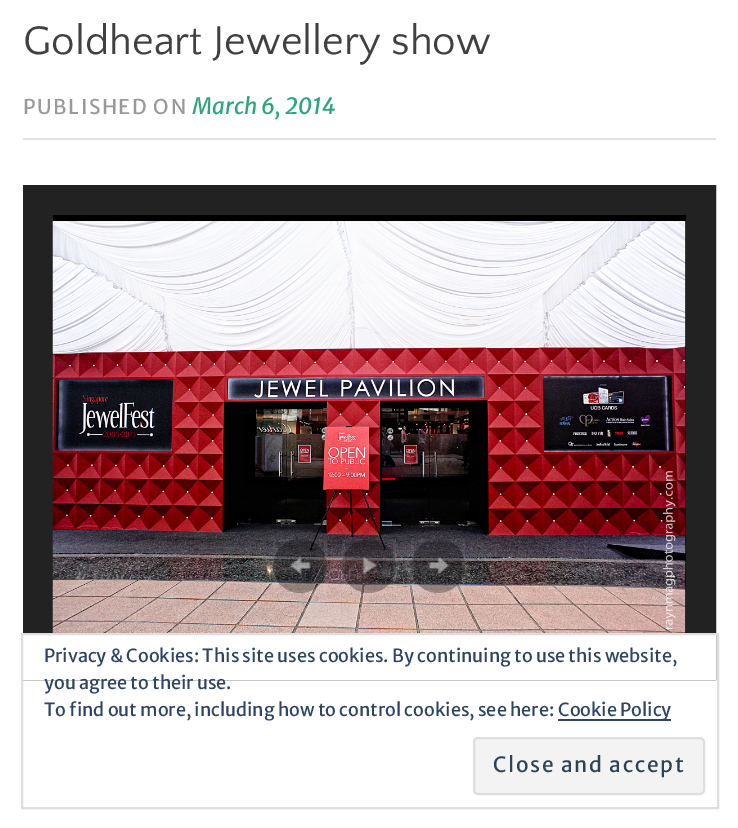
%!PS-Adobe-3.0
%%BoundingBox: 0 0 738 828
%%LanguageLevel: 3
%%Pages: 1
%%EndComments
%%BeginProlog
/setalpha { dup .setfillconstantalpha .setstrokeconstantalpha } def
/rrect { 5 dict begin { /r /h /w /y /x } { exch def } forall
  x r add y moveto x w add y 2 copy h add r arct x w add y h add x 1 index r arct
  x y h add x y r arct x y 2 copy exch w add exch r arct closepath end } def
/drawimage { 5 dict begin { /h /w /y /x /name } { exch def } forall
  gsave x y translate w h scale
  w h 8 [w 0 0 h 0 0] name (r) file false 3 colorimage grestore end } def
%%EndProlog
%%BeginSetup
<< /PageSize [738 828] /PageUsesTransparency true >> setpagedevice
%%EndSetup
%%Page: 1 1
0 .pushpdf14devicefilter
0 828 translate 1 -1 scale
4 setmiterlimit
1 setgray
0 0 738 828 rectfill
0.882 setgray
23 138 693 2 rectfill
0.133 setgray
30 setlinewidth
38 200 663 465 rectstroke
0 setgray
53 215 633 418 rectfill
(images/1.raw) 52 221 634 412 drawimage
0.3 setalpha
newpath 300 566 27 0 360 arc closepath fill
1 setalpha
(images/2.raw) 289 556 24 20 drawimage
0.05 setalpha
1 setgray
3 setlinewidth
274.5 540.5 51 51 rectstroke
0.3 setalpha
0 setgray
newpath 369 566 27 0 360 arc closepath fill
1 setalpha
(images/3.raw) 362 556 16 20 drawimage
0.05 setalpha
1 setgray
343.5 540.5 51 51 rectstroke
0.3 setalpha
0 setgray
newpath 438 566 27 0 360 arc closepath fill
1 setalpha
(images/4.raw) 428 556 23 20 drawimage
0.05 setalpha
1 setgray
412.5 540.5 51 51 rectstroke
1 setalpha
23 635 693 45 rectfill
0.871 setgray
2 setlinewidth
22 634 696 174 rectstroke
0.18 0.267 0.404 setrgbcolor
558 719 113 2 rectfill
0.953 setgray
474 738 230 56 4 rrect gsave fill grestore
0.871 setgray
stroke
/QuattrocentoSans-Regular [42 0 0 -42 0 0] selectfont
0.251 setgray
23 54 moveto (Goldheart Jewellery show) show
/MerriweatherSans-Regular [20.25 0 0 -20.25 0 0] selectfont
0.6 setgray
23 114 moveto 1.6 0 (PUBLISHED ON) ashow
/MerriweatherSans-Italic [22.5 0 0 -22.5 0 0] selectfont
0.165 0.651 0.49 setrgbcolor
192 114 moveto (March 6, 2014) show
/MerriweatherSans-Regular [18 0 0 -18 0 0] selectfont
0.18 0.267 0.404 setrgbcolor
44 662 moveto (Privacy & Cookies: This site uses cookies. By continuing to use this website,) show
44 689 moveto (you agree to their use.) show
44 716 moveto (To find out more, including how to control cookies, see here:) show
558 716 moveto (Cookie Policy) show
/MerriweatherSans-Regular [21 0 0 -21 0 0] selectfont
0.18 0.267 0.325 setrgbcolor
493 772 moveto 1.7 0 (Close and accept) ashow
.poppdf14devicefilter showpage
%%EOF
